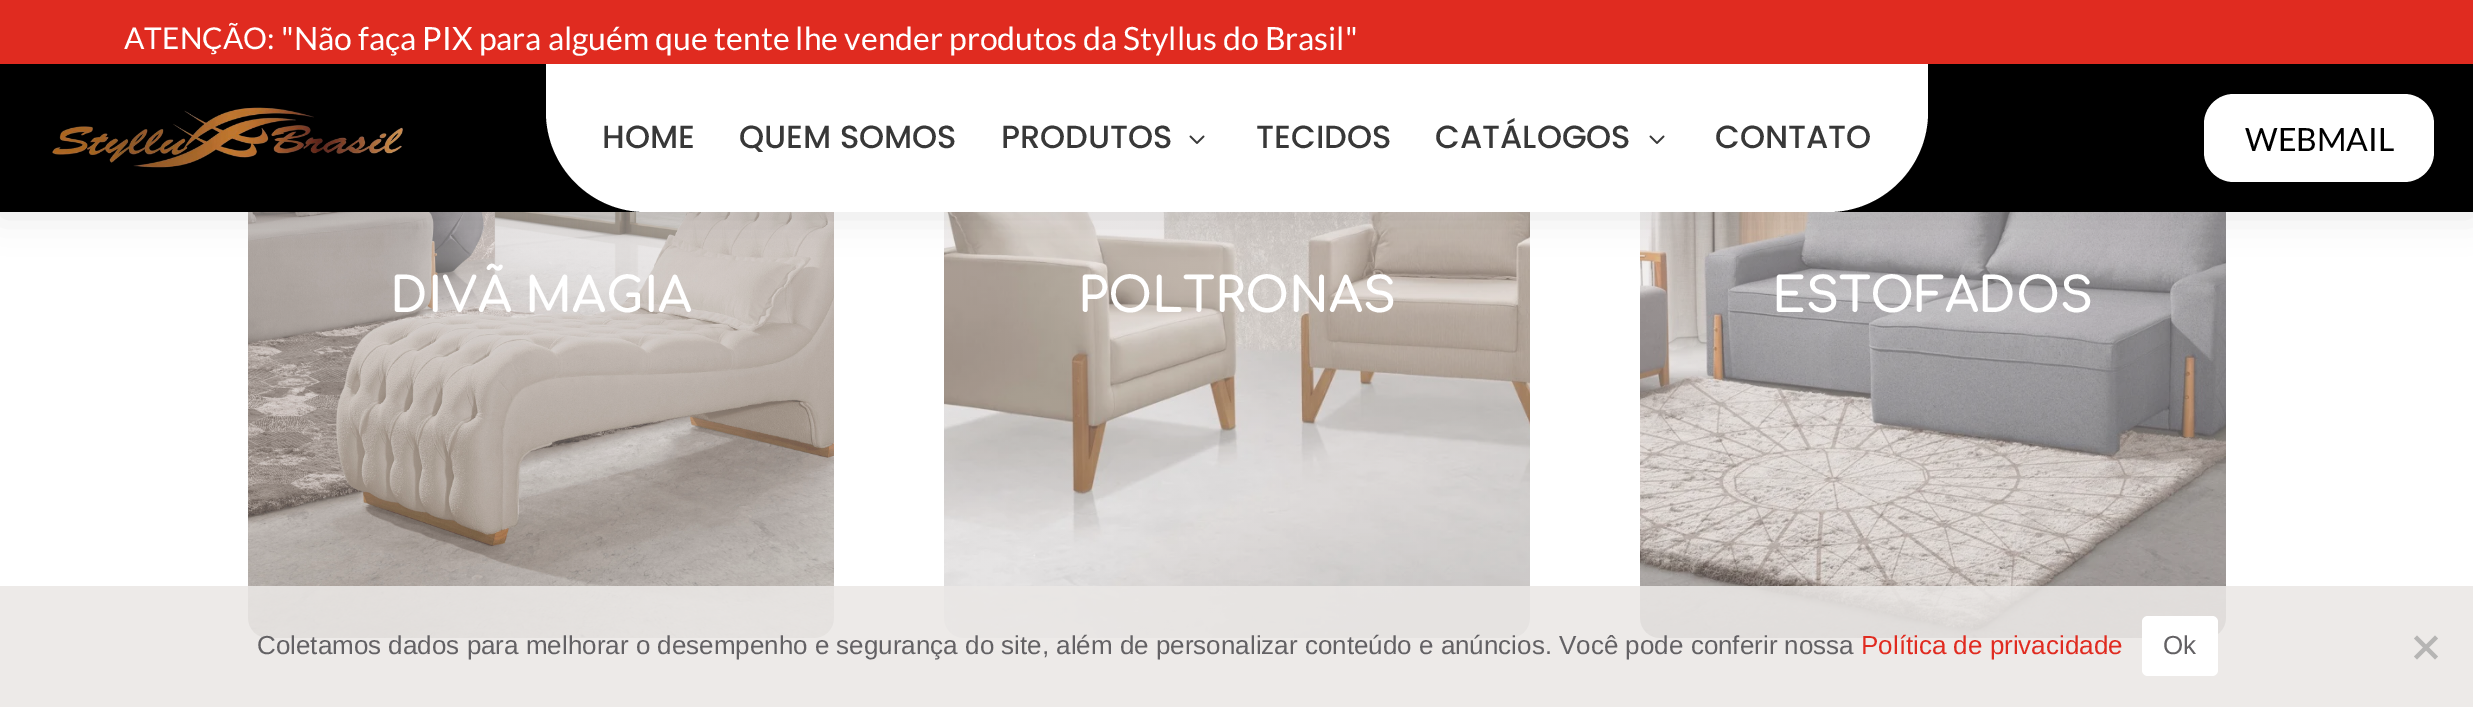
%!PS-Adobe-3.0
%%BoundingBox: 0 0 2473 707
%%LanguageLevel: 3
%%Pages: 1
%%EndComments
%%BeginProlog
/setalpha { dup .setfillconstantalpha .setstrokeconstantalpha } def
/rrect { 5 dict begin { /r /h /w /y /x } { exch def } forall
  x r add y moveto x w add y 2 copy h add r arct x w add y h add x 1 index r arct
  x y h add x y r arct x y 2 copy exch w add exch r arct closepath end } def
/softshadow { 12 dict begin { /a /b /q /h /w /y /x } { exch def } forall gsave /was 0 def
  9 -2 -9 { dup b mul 4 div /e exch def 1 sub .425 mul 2.718 exch exp 1 add a .99 .min exch div /now exch def
    1 1 now sub 1 was sub div sub setalpha /was now def
    w h .min e 2 mul add 0 gt { x e sub y e sub w e 2 mul add h e 2 mul add
      q e add b .6 mul add w h .min 2 div e add .min 0 .max rrect fill } if } for grestore end } def
/drawimage { 5 dict begin { /h /w /y /x /name } { exch def } forall
  gsave x y translate w h scale
  w h 8 [w 0 0 h 0 0] name (r) file false 3 colorimage grestore end } def
%%EndProlog
%%BeginSetup
<< /PageSize [2473 707] /PageUsesTransparency true >> setpagedevice
%%EndSetup
%%Page: 1 1
0 .pushpdf14devicefilter
0 707 translate 1 -1 scale
4 setmiterlimit
1 setgray
0 0 2473 707 rectfill
(images/3.raw) 248 212 586 426 drawimage
(images/4.raw) 944 212 586 426 drawimage
(images/5.raw) 1640 212 586 426 drawimage
0 setgray
0 4 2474 212 0 18 0.1 softshadow
0 64 2473 148 rectfill
0.878 0.169 0.125 setrgbcolor
0 0 2473 64 rectfill
(images/1.raw) 52 107 351 61 drawimage
1 setgray
newpath 546 64 moveto 1928 64 lineto 1928 112 lineto 1928 167 1883 212 1828 212 curveto 646 212 lineto 591 212 546 167 546 112 curveto closepath fill
(images/2.raw) 1189 135 16 9 drawimage
(images/2.raw) 1649 135 16 9 drawimage
2204 94 230 88 30 rrect fill
0.88 setalpha
0.918 0.906 0.898 setrgbcolor
0 586 2473 121 rectfill
1 setalpha
1 setgray
2142 616 76 60 6 rrect fill
0.714 0.71 0.706 setrgbcolor
newpath 2435 635.5 moveto 2438 638.5 lineto 2417 659.5 lineto 2414 656.5 lineto closepath fill
newpath 2414 638.5 moveto 2417 635.5 lineto 2438 656.5 lineto 2435 659.5 lineto closepath fill
/Lato-Regular [30 0 0 -30 0 0] selectfont
1 setgray
124 49 moveto (ATENÇÃO:) show
/Lato-Regular [32 0 0 -32 0 0] selectfont
281 50 moveto ("Não faça PIX para alguém que tente lhe vender produtos da Styllus do Brasil") show
/Poppins-Medium [32 0 0 -32 0 0] selectfont
0.22 setgray
602 148 moveto (HOME) show
739 148 moveto (QUEM SOMOS) show
1001 148 moveto (PRODUTOS) show
1256 148 moveto (TECIDOS) show
1435 148 moveto (CATÁLOGOS) show
1715 148 moveto (CONTATO) show
/Lato-Regular [32 0 0 -32 0 0] selectfont
0 setgray
2245 151 moveto (WEBMAIL) show
/Comfortaa-Bold [48 0 0 -48 0 0] selectfont
1 setgray
390 312 moveto (DIVÃ MAGIA) show
1078 312 moveto (POLTRONAS) show
1772 312 moveto (ESTOFADOS) show
/LiberationSans-Regular [26 0 0 -26 0 0] selectfont
0.388 0.38 0.392 setrgbcolor
257 654 moveto (Coletamos dados para melhorar o desempenho e segurança do site, além de personalizar conteúdo e anúncios. Você pode conferir nossa) show
0.878 0.169 0.125 setrgbcolor
1861 654 moveto (Política de privacidade) show
0.388 0.38 0.392 setrgbcolor
2163 654 moveto (Ok) show
.poppdf14devicefilter showpage
%%EOF
